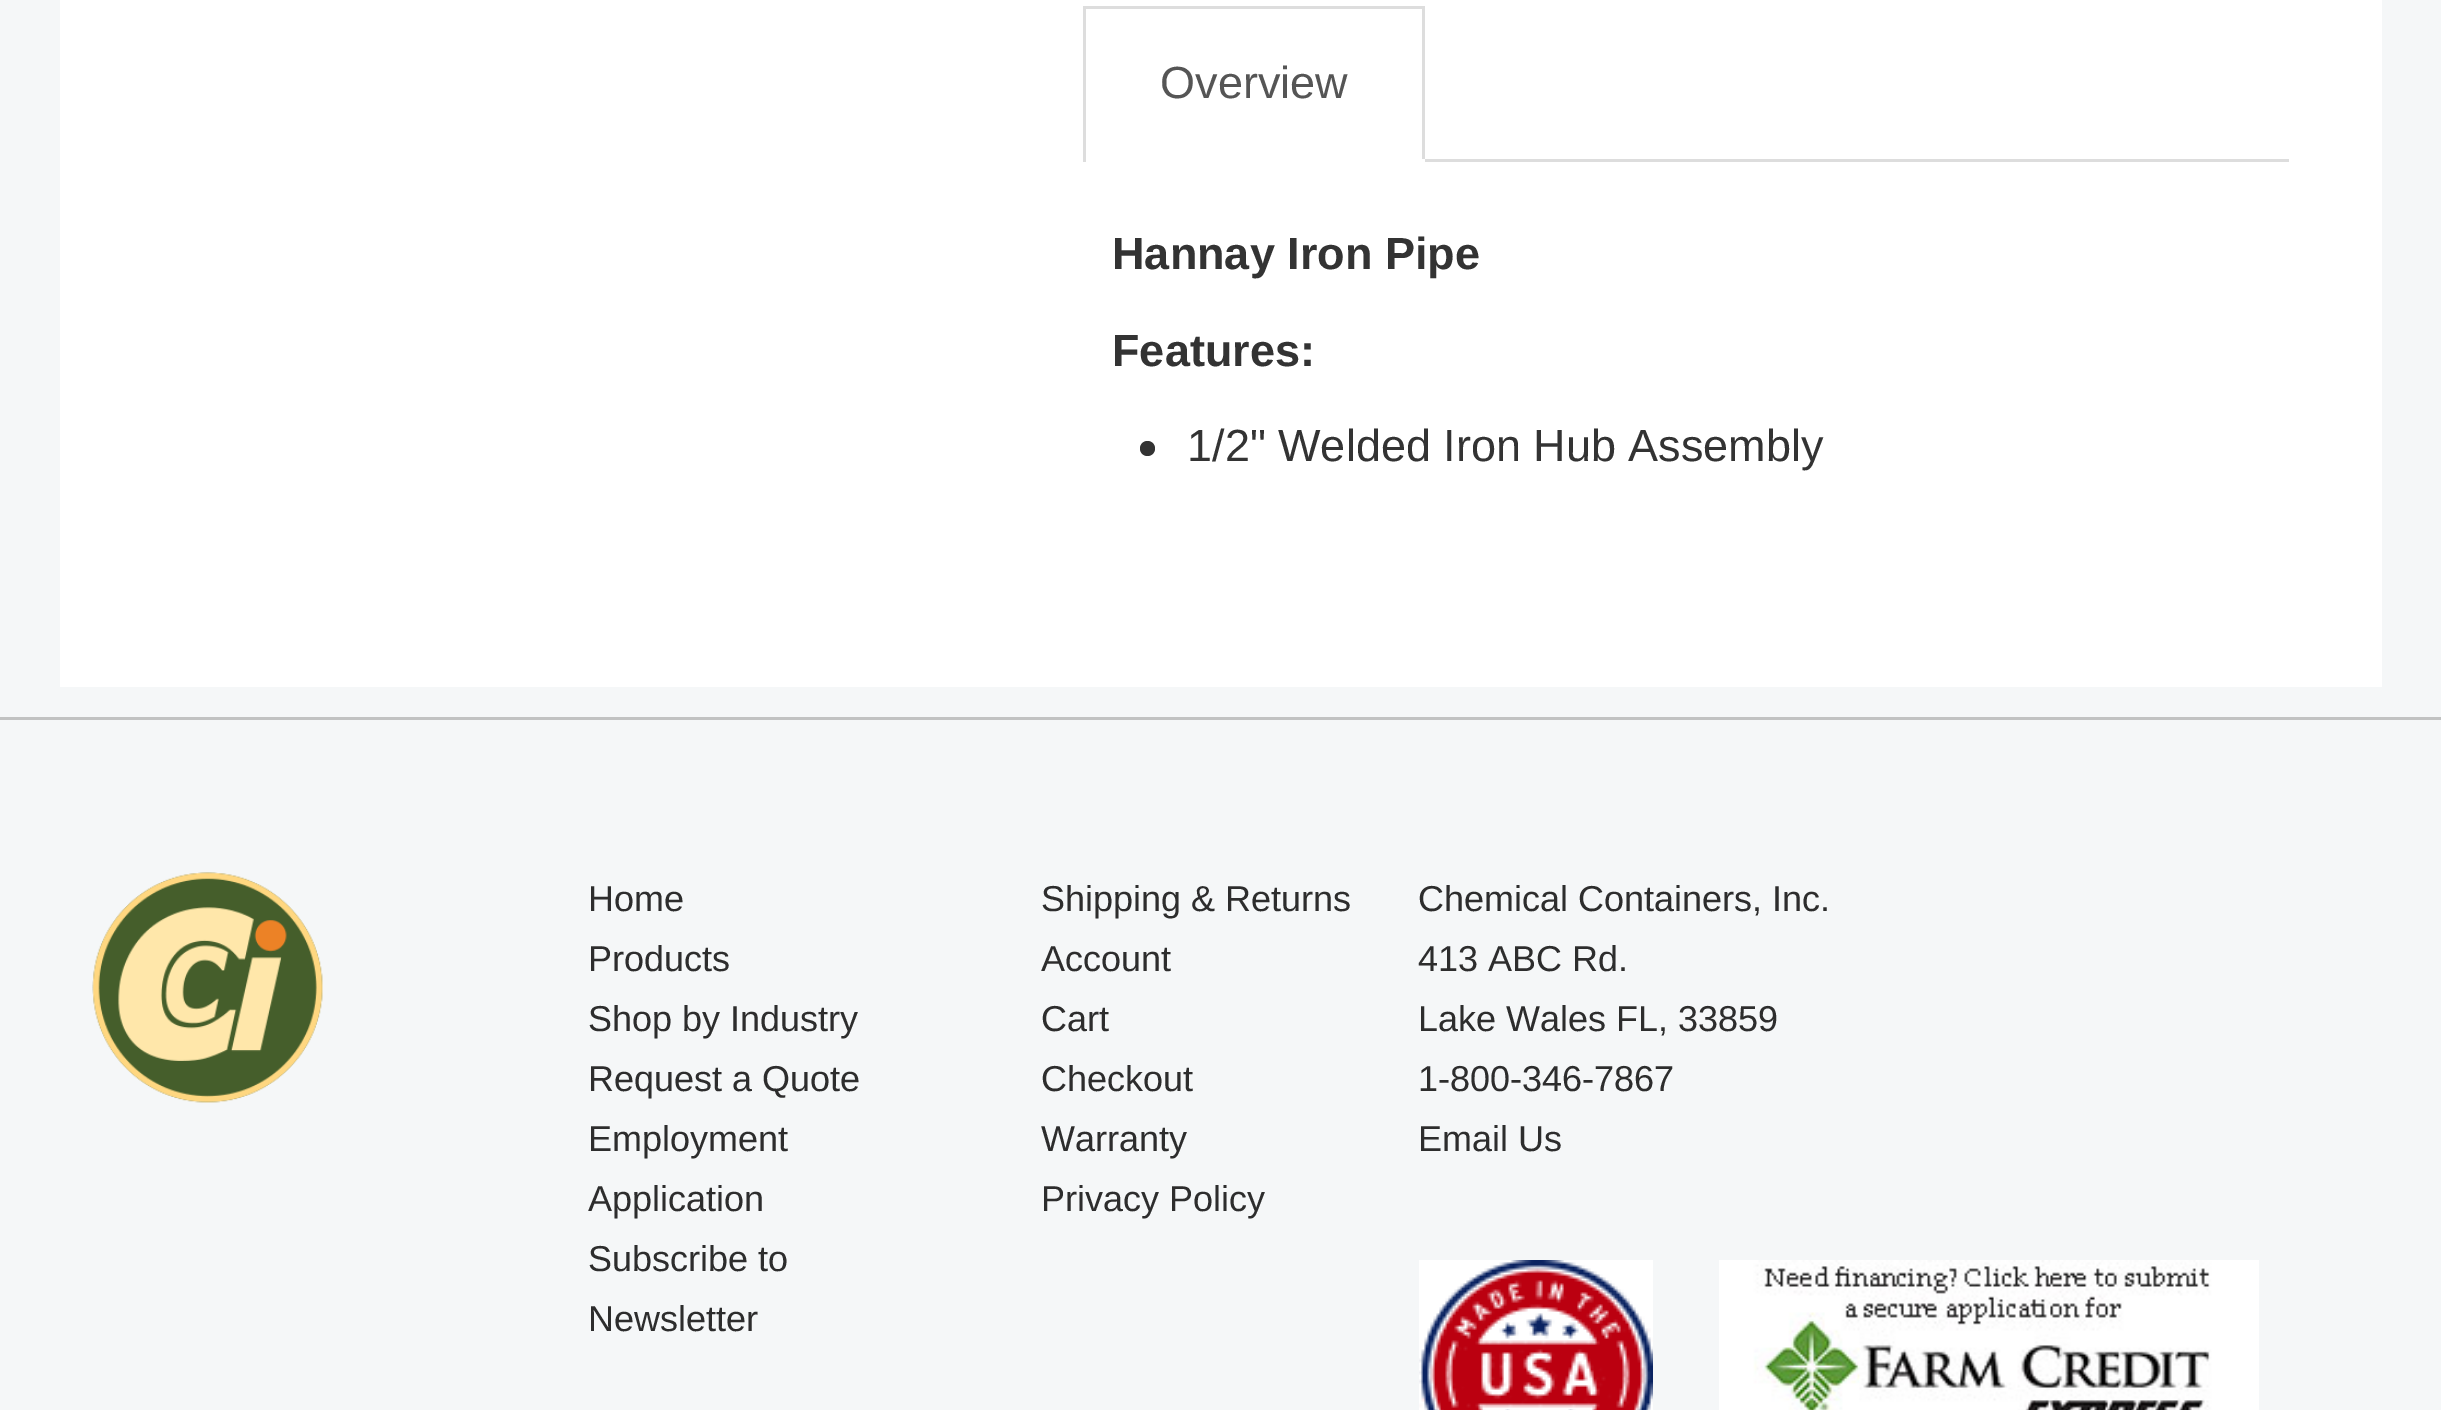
%!PS-Adobe-3.0
%%BoundingBox: 0 0 2441 1410
%%LanguageLevel: 3
%%Pages: 1
%%EndComments
%%BeginProlog
/drawimage { 5 dict begin { /h /w /y /x /name } { exch def } forall
  gsave x y translate w h scale
  w h 8 [w 0 0 h 0 0] name (r) file false 3 colorimage grestore end } def
%%EndProlog
%%BeginSetup
<< /PageSize [2441 1410] >> setpagedevice
%%EndSetup
%%Page: 1 1
0 1410 translate 1 -1 scale
4 setmiterlimit
0.961 0.969 0.973 setrgbcolor
0 0 2441 1410 rectfill
1 setgray
60 0 2322 687 rectfill
0.867 setgray
1425 159 864 3 rectfill
1083 6 342 3 rectfill
1422 6 3 156 rectfill
1 setgray
1422 159 3 3 rectfill
0.867 setgray
1083 6 3 156 rectfill
0.2 setgray
newpath 1147.5 448.5 7.5 0 360 arc closepath fill
0.757 0.761 0.761 setrgbcolor
0 717 2441 3 rectfill
(images/1.raw) 92 872 231 231 drawimage
(images/2.raw) 1419 1260 234 150 drawimage
(images/3.raw) 1719 1260 540 150 drawimage
/LiberationSans-Regular [45 0 0 -45 0 0] selectfont
0.333 setgray
1160 98 moveto (Overview) show
/LiberationSans-Bold [45 0 0 -45 0 0] selectfont
0.2 setgray
1112 269 moveto (Hannay Iron Pipe) show
1112 366 moveto (Features:) show
/LiberationSans-Regular [45 0 0 -45 0 0] selectfont
1187 461 moveto (1/2" Welded Iron Hub Assembly) show
/LiberationSans-Regular [36 0 0 -36 0 0] selectfont
0.176 setgray
588 911 moveto (Home) show
588 971 moveto (Products) show
588 1031 moveto (Shop by Industry) show
588 1091 moveto (Request a Quote) show
588 1151 moveto (Employment) show
588 1211 moveto (Application) show
588 1271 moveto (Subscribe to) show
588 1331 moveto (Newsletter) show
1041 911 moveto (Shipping & Returns) show
1041 971 moveto (Account) show
1041 1031 moveto (Cart) show
1041 1091 moveto (Checkout) show
1041 1151 moveto (Warranty) show
1041 1211 moveto (Privacy Policy) show
1418 911 moveto (Chemical Containers, Inc.) show
1418 971 moveto (413 ABC Rd.) show
1418 1031 moveto (Lake Wales FL, 33859) show
1418 1091 moveto (1-800-346-7867) show
1418 1151 moveto (Email Us) show
showpage
%%EOF
